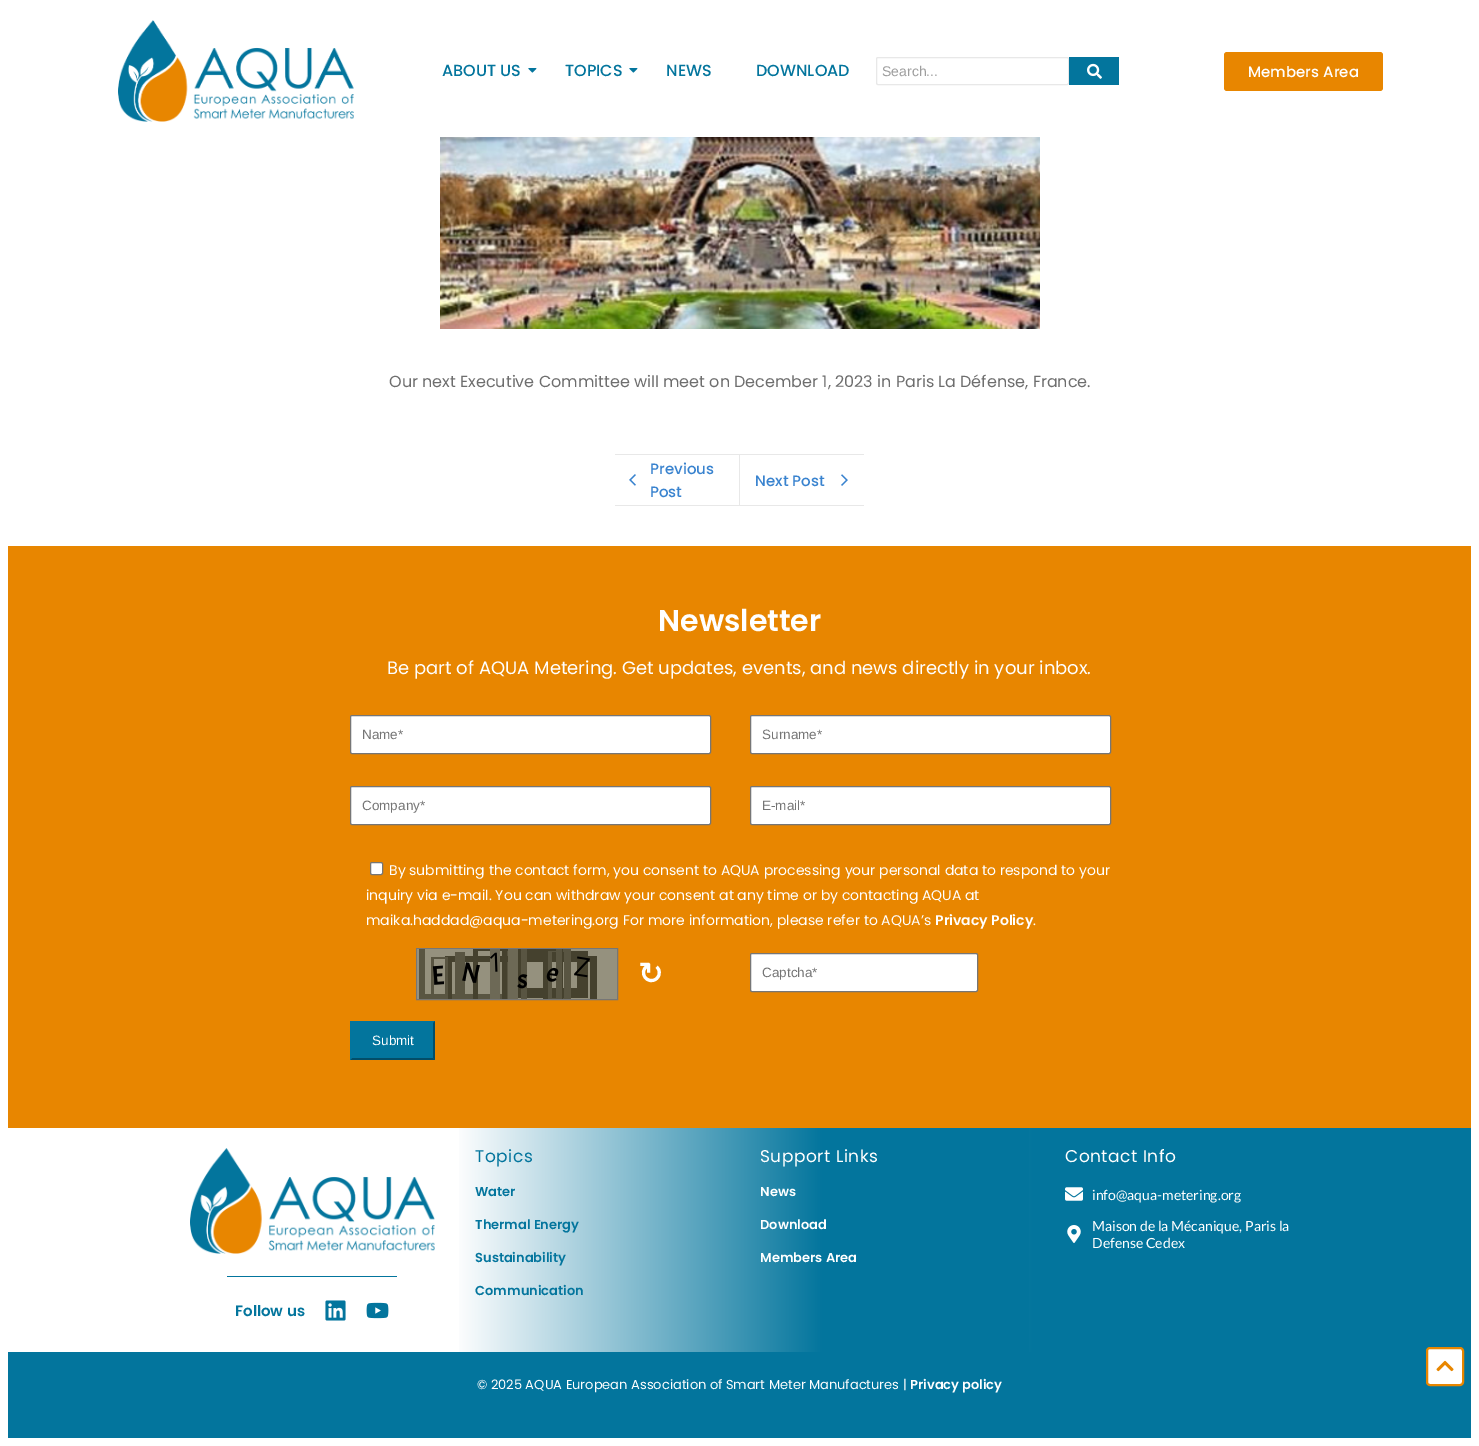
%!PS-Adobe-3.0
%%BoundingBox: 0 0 1479 1446
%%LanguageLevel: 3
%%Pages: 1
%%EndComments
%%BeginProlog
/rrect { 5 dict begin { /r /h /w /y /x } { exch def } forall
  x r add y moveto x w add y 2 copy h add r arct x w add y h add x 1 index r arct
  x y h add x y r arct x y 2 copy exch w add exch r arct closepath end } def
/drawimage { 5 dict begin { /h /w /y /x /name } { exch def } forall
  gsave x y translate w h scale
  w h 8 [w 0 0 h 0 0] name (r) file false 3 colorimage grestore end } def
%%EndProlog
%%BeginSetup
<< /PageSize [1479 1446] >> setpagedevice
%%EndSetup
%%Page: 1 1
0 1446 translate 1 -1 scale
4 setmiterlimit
1 setgray
0 0 1479 1446 rectfill
(images/1.raw) 118 20 236 102 drawimage
(images/2.raw) 528 68 9 5 drawimage
(images/2.raw) 629 68 9 5 drawimage
0.91 setgray
876.5 57.5 192 27 1.5 rrect stroke
0.012 0.459 0.616 setrgbcolor
1069 57 50 28 rectfill
(images/3.raw) 1087 63 15 16 drawimage
0.91 0.525 0 setrgbcolor
1224 52 159 39 3 rrect fill
(images/4.raw) 440 137 600 192 drawimage
0.91 setgray
615 454 249 1 rectfill
615 505 249 1 rectfill
(images/5.raw) 629 474 7 12 drawimage
739 455 1 50 rectfill
(images/6.raw) 841 474 7 12 drawimage
0.91 0.525 0 setrgbcolor
8 546 1463 582 rectfill
1 setgray
350.5 715.5 360 38 1.5 rrect gsave fill grestore
0.463 setgray
stroke
1 setgray
750.5 715.5 360 38 1.5 rrect gsave fill grestore
0.463 setgray
stroke
1 setgray
350.5 786.5 360 38 1.5 rrect gsave fill grestore
0.463 setgray
stroke
1 setgray
750.5 786.5 360 38 1.5 rrect gsave fill grestore
0.463 setgray
stroke
1 setgray
370.5 862.5 12 12 1.5 rrect gsave fill grestore
0.463 setgray
stroke
416.5 948.5 201 51 rectstroke
(images/7.raw) 417 949 200 50 drawimage
1 setgray
750.5 953.5 227 38 1.5 rrect gsave fill grestore
0.463 setgray
stroke
0.012 0.459 0.616 setrgbcolor
350 1021 85 39 rectfill
0.008 0.306 0.412 setrgbcolor
newpath 435 1021 moveto 435 1060 lineto 433 1058 lineto 433 1023 lineto closepath fill
newpath 435 1060 moveto 350 1060 lineto 352 1058 lineto 433 1058 lineto closepath fill
0.012 0.459 0.616 setrgbcolor
newpath 350 1060 moveto 350 1021 lineto 352 1023 lineto 352 1058 lineto closepath fill
gsave newpath 742 1128 moveto 1471 1128 lineto 1471 1352 lineto 742 1352 lineto closepath clip newpath
<< /ShadingType 2 /ColorSpace /DeviceRGB /Coords [8 1240 1471 1240] /Extend [true true] /Function << /FunctionType 3 /Domain [0 1] /Functions [<< /FunctionType 2 /Domain [0 1] /C0 [1 1 1] /C1 [1 1 1] /N 1 >> << /FunctionType 2 /Domain [0 1] /C0 [1 1 1] /C1 [0.012 0.459 0.616] /N 1 >> << /FunctionType 2 /Domain [0 1] /C0 [0.012 0.459 0.616] /C1 [0.012 0.459 0.616] /N 1 >>] /Bounds [0.5 0.7] /Encode [0 1 0 1 0 1] >> >> shfill grestore
gsave newpath 459 1128 moveto 1029 1128 lineto 1029 1352 lineto 459 1352 lineto closepath clip newpath
<< /ShadingType 2 /ColorSpace /DeviceRGB /Coords [455 1240 1310 1240] /Extend [true true] /Function << /FunctionType 3 /Domain [0 1] /Functions [<< /FunctionType 2 /Domain [0 1] /C0 [1 1 1] /C1 [0.012 0.459 0.616] /N 1 >> << /FunctionType 2 /Domain [0 1] /C0 [0.012 0.459 0.616] /C1 [0.012 0.459 0.616] /N 1 >>] /Bounds [0.43] /Encode [0 1 0 1] >> >> shfill grestore
(images/8.raw) 1065 1187 18 14 drawimage
(images/9.raw) 1067 1225 14 18 drawimage
(images/10.raw) 190 1148 245 106 drawimage
227 1276 170 1 rectfill
(images/11.raw) 325 1300 21 21 drawimage
(images/12.raw) 366 1302 23 17 drawimage
8 1352 1463 86 rectfill
1 setgray
1427 1348 36 37 3 rrect gsave fill grestore
0.91 0.525 0 setrgbcolor
2 setlinewidth
stroke
(images/13.raw) 1436 1360 18 12 drawimage
/Poppins-Medium [16 0 0 -16 0 0] selectfont
0.012 0.459 0.616 setrgbcolor
442 76 moveto (ABOUT US) show
565 76 moveto (TOPICS) show
666 76 moveto (NEWS) show
756 76 moveto (DOWNLOAD) show
/LiberationSans-Regular [14 0 0 -14 0 0] selectfont
0.62 setgray
882 76 moveto (Search...) show
/Poppins-Medium [15 0 0 -15 0 0] selectfont
1 setgray
1248 77 moveto (Members Area) show
/Poppins-Regular [16 0 0 -16 0 0] selectfont
0.431 setgray
389 387 moveto (Our next Executive Committee will meet on December 1, 2023 in Paris La Défense, France.) show
/Poppins-Medium [15 0 0 -15 0 0] selectfont
0.224 0.514 0.812 setrgbcolor
650 474 moveto (Previous) show
650 497 moveto (Post) show
755 486 moveto (Next Post) show
/Poppins-SemiBold [30 0 0 -30 0 0] selectfont
1 setgray
658 631 moveto (Newsletter) show
/Poppins-Regular [18 0 0 -18 0 0] selectfont
387 674 moveto (Be part of AQUA Metering. Get updates, events, and news directly in your inbox.) show
/LiberationSans-Regular [13.5 0 0 -13.5 0 0] selectfont
0.459 setgray
362 739 moveto (Name*) show
762 739 moveto (Surname*) show
362 810 moveto (Company*) show
762 810 moveto (E-mail*) show
/Poppins-Regular [14 0 0 -14 0 0] selectfont
1 setgray
389 875 moveto (By submitting the contact form, you consent to AQUA processing your personal data to respond to your) show
366 900 moveto (inquiry via e-mail. You can withdraw your consent at any time or by contacting AQUA at) show
366 925 moveto (maika.haddad@aqua-metering.org For more information, please refer to AQUA’s) show
/Poppins-SemiBold [14 0 0 -14 0 0] selectfont
935 925 moveto (Privacy Policy) show
/Poppins-Regular [14 0 0 -14 0 0] selectfont
1033 925 moveto (.) show
/DejaVuSans-Bold [30 0 0 -30 0 0] selectfont
638 984 moveto (↻) show
/LiberationSans-Regular [13.5 0 0 -13.5 0 0] selectfont
0.459 setgray
762 977 moveto (Captcha*) show
1 setgray
372 1045 moveto (Submit) show
/Poppins-Regular [17 0 0 -17 0 0] selectfont
0.012 0.459 0.616 setrgbcolor
475 1162 moveto 0.5 0 (Topics) ashow
/Poppins-SemiBold [13 0 0 -13 0 0] selectfont
475 1196 moveto (Water) show
475 1229 moveto (Thermal Energy) show
475 1262 moveto (Sustainability) show
475 1295 moveto (Communication) show
/Poppins-Regular [17 0 0 -17 0 0] selectfont
1 setgray
760 1162 moveto 0.5 0 (Support Links) ashow
/Poppins-SemiBold [13 0 0 -13 0 0] selectfont
760 1196 moveto (News) show
760 1229 moveto (Download) show
760 1262 moveto (Members Area) show
/Poppins-Regular [17 0 0 -17 0 0] selectfont
1065 1162 moveto 0.5 0 (Contact Info) ashow
/Lato-Regular [14 0 0 -14 0 0] selectfont
1092 1200 moveto (info@aqua-metering.org) show
1092 1231 moveto (Maison de la Mécanique, Paris la) show
1092 1248 moveto (Defense Cedex) show
/Poppins-SemiBold [15 0 0 -15 0 0] selectfont
0.012 0.459 0.616 setrgbcolor
235 1316 moveto (Follow us) show
/Poppins-Regular [13 0 0 -13 0 0] selectfont
1 setgray
477 1389 moveto (© 2025 AQUA European Association of Smart Meter Manufactures |) show
/Poppins-SemiBold [13 0 0 -13 0 0] selectfont
910 1389 moveto (Privacy policy) show
showpage
%%EOF
